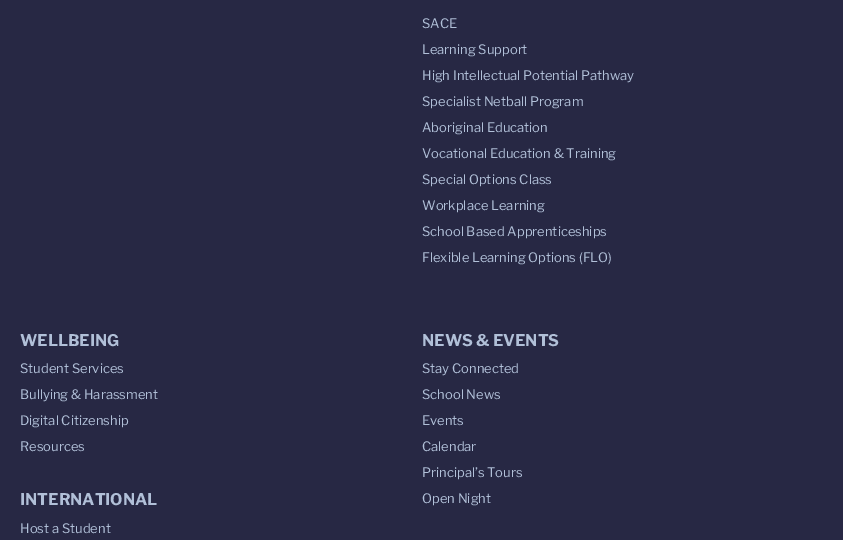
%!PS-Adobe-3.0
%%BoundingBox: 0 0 843 540
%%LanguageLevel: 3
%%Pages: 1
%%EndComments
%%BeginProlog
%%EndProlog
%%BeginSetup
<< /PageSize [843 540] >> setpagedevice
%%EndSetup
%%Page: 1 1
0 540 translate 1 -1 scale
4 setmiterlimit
0.153 0.157 0.267 setrgbcolor
0 0 843 540 rectfill
/LibreFranklin-Regular [13 0 0 -13 0 0] selectfont
0.694 0.753 0.847 setrgbcolor
422 28 moveto (SACE) show
422 54 moveto (Learning Support) show
422 80 moveto (High Intellectual Potential Pathway) show
422 106 moveto (Specialist Netball Program) show
422 132 moveto (Aboriginal Education) show
422 158 moveto (Vocational Education & Training) show
422 184 moveto (Special Options Class) show
422 210 moveto (Workplace Learning) show
422 236 moveto (School Based Apprenticeships) show
422 262 moveto (Flexible Learning Options \(FLO\)) show
/LibreFranklin-Bold [16 0 0 -16 0 0] selectfont
20 346 moveto (WELLBEING) show
/LibreFranklin-Regular [13 0 0 -13 0 0] selectfont
20 373 moveto (Student Services) show
20 399 moveto (Bullying & Harassment) show
20 425 moveto (Digital Citizenship) show
20 451 moveto (Resources) show
/LibreFranklin-Bold [16 0 0 -16 0 0] selectfont
20 505 moveto (INTERNATIONAL) show
/LibreFranklin-Regular [13 0 0 -13 0 0] selectfont
20 533 moveto (Host a Student) show
/LibreFranklin-Bold [16 0 0 -16 0 0] selectfont
422 346 moveto (NEWS & EVENTS) show
/LibreFranklin-Regular [13 0 0 -13 0 0] selectfont
422 373 moveto (Stay Connected) show
422 399 moveto (School News) show
422 425 moveto (Events) show
422 451 moveto (Calendar) show
422 477 moveto (Principal’s Tours) show
422 503 moveto (Open Night) show
showpage
%%EOF
